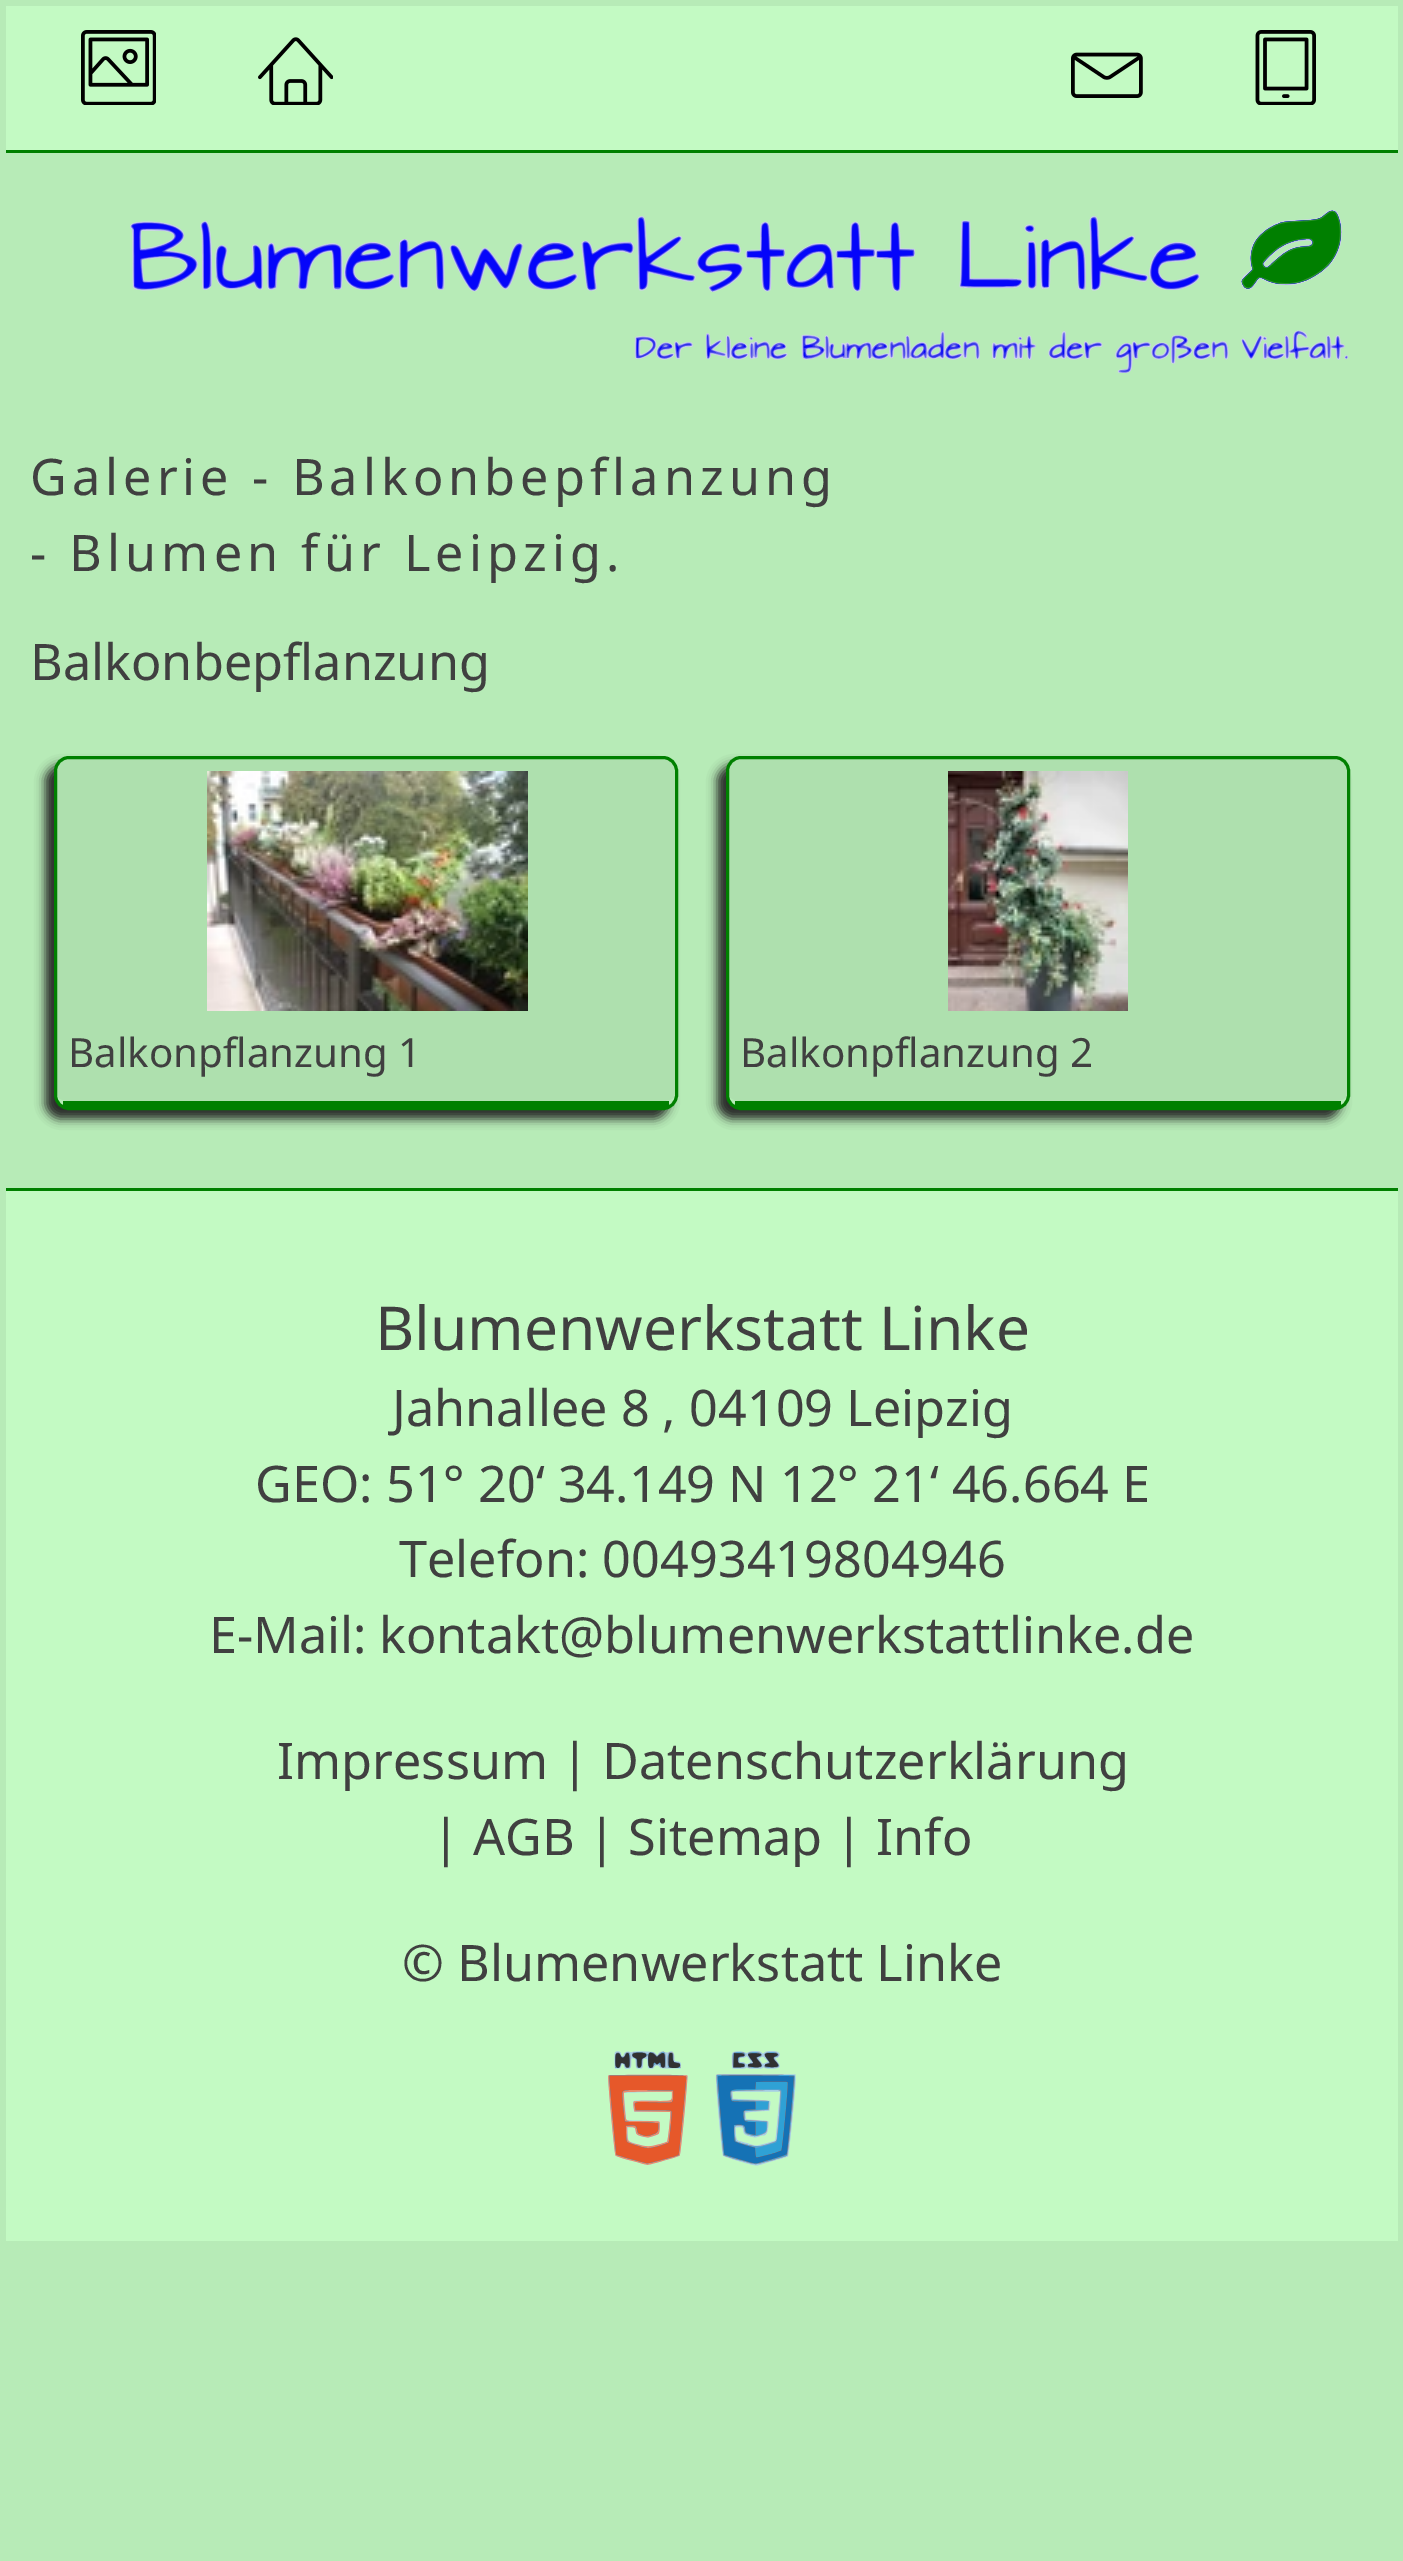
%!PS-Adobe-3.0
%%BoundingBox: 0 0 1403 2561
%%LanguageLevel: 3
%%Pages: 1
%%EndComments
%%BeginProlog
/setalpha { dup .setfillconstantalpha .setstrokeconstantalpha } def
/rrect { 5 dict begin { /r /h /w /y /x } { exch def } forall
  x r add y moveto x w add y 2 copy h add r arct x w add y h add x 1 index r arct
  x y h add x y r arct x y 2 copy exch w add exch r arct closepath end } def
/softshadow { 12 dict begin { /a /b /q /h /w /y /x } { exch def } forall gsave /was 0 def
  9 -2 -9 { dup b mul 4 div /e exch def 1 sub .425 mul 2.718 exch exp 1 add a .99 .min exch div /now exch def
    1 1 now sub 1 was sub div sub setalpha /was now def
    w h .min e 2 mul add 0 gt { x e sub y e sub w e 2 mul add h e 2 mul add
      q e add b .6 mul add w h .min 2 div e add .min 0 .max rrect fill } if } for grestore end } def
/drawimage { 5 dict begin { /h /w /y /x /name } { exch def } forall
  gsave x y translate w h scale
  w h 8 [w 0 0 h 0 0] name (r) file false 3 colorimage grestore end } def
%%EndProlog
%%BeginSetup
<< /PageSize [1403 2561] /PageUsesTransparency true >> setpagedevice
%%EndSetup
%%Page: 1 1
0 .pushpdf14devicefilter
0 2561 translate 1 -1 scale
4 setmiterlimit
0.718 0.922 0.718 setrgbcolor
0 0 1403 2561 rectfill
0.765 0.98 0.765 setrgbcolor
6 6 1392 144 rectfill
0 0.502 0 setrgbcolor
6 150 1392 3 rectfill
(images/1.raw) 81 30 75 75 drawimage
(images/2.raw) 258 37 75 68 drawimage
(images/3.raw) 1071 52 72 46 drawimage
(images/4.raw) 1255 30 61 75 drawimage
(images/5.raw) 130 210 1219 163 drawimage
gsave
newpath 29 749 moveto 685 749 lineto 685 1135 lineto 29 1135 lineto closepath 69 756 moveto 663 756 lineto 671.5 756 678 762.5 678 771 curveto 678 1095 lineto 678 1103.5 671.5 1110 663 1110 curveto 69 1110 lineto 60.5 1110 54 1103.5 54 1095 curveto 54 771 lineto 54 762.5 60.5 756 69 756 curveto closepath eoclip newpath
0.153 setgray
45 765 624 354 15 5 1 softshadow
grestore
0.682 0.878 0.682 setrgbcolor
newpath 69 759 moveto 663 759 lineto 670 759 675 764 675 771 curveto 675 1095 lineto 675 1098 670 1101 663 1101 curveto 69 1101 lineto 62 1101 57 1098 57 1095 curveto 57 771 lineto 57 764 62 759 69 759 curveto closepath fill
0 0.502 0 setrgbcolor
3 setlinewidth
55.5 757.5 621 351 13.5 rrect stroke
63 1101 606 6 rectfill
(images/6.raw) 207 771 321 240 drawimage
gsave
newpath 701 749 moveto 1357 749 lineto 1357 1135 lineto 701 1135 lineto closepath 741 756 moveto 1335 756 lineto 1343.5 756 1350 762.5 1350 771 curveto 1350 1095 lineto 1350 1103.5 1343.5 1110 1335 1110 curveto 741 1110 lineto 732.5 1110 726 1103.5 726 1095 curveto 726 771 lineto 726 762.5 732.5 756 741 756 curveto closepath eoclip newpath
0.153 setgray
717 765 624 354 15 5 1 softshadow
grestore
0.682 0.878 0.682 setrgbcolor
newpath 741 759 moveto 1335 759 lineto 1342 759 1347 764 1347 771 curveto 1347 1095 lineto 1347 1098 1342 1101 1335 1101 curveto 741 1101 lineto 734 1101 729 1098 729 1095 curveto 729 771 lineto 729 764 734 759 741 759 curveto closepath fill
0 0.502 0 setrgbcolor
727.5 757.5 621 351 13.5 rrect stroke
735 1101 606 6 rectfill
(images/7.raw) 948 771 180 240 drawimage
0.765 0.98 0.765 setrgbcolor
6 1191 1392 1050 rectfill
0 0.502 0 setrgbcolor
6 1188 1392 3 rectfill
(images/8.raw) 608 2051 188 115 drawimage
/NotoSans-Regular [50.4 0 0 -50.4 0 0] selectfont
0.251 setgray
30 495 moveto 5.05 0 (Galerie - Balkonbepflanzung) ashow
30 571 moveto 5.05 0 (- Blumen für Leipzig.) ashow
30 680 moveto (Balkonbepflanzung) show
/NotoSans-Regular [40.25 0 0 -40.25 0 0] selectfont
68 1067 moveto (Balkonpflanzung 1) show
740 1067 moveto (Balkonpflanzung 2) show
/NotoSans-Regular [60.5 0 0 -60.5 0 0] selectfont
375 1350 moveto (Blumenwerkstatt Linke) show
/NotoSans-Regular [50.4 0 0 -50.4 0 0] selectfont
392 1426 moveto (Jahnallee 8 , 04109 Leipzig) show
255 1502 moveto (GEO: 51° 20‘ 34.149 N 12° 21‘ 46.664 E) show
399 1577 moveto (Telefon: 00493419804946) show
209 1653 moveto -1 0 32 (E-Mail: kontakt@blumenwerkstattlinke.de) widthshow
277 1779 moveto (Impressum | Datenschutzerklärung) show
432 1855 moveto (| AGB | Sitemap | Info) show
402 1981 moveto (© Blumenwerkstatt Linke) show
.poppdf14devicefilter showpage
%%EOF
